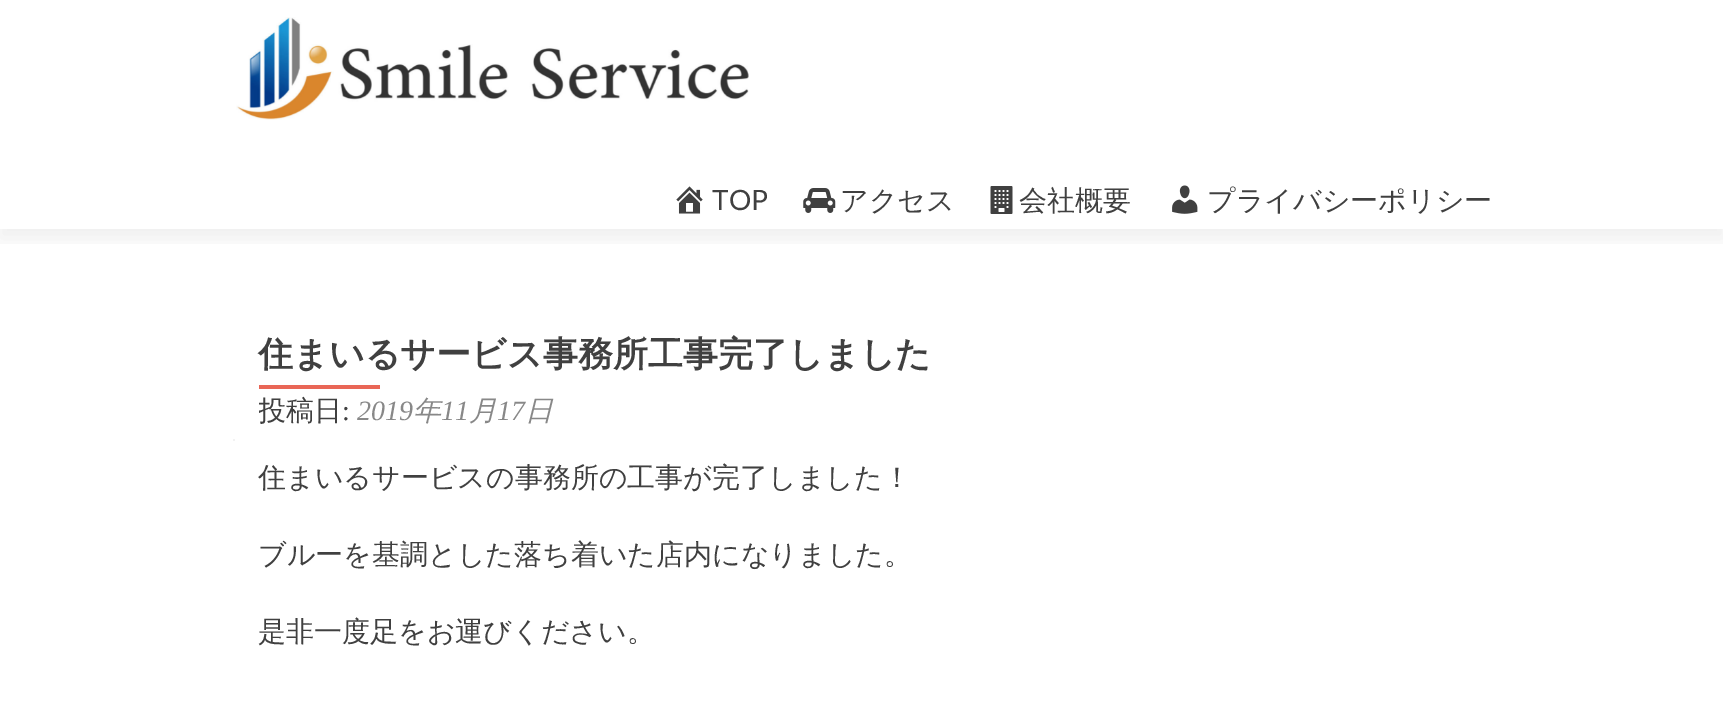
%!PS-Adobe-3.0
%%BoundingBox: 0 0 1723 704
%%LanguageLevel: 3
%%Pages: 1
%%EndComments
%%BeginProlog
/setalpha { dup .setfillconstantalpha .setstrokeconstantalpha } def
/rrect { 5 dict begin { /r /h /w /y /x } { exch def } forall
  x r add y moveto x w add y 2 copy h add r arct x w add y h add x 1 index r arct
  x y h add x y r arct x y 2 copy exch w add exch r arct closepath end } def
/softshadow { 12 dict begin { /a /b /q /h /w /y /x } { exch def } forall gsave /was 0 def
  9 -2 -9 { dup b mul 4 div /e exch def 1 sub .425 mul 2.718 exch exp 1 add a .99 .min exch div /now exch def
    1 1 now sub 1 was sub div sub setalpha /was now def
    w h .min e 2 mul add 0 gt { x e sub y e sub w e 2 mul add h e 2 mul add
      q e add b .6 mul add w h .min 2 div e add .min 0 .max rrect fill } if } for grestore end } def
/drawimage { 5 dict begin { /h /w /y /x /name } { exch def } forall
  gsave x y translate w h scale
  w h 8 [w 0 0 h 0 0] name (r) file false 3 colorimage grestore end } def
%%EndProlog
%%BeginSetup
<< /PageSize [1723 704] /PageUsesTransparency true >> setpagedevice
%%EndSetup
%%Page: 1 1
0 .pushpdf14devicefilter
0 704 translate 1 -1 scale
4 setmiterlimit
1 setgray
0 0 1723 704 rectfill
gsave
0 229 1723 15 rectclip
0.196 setgray
0 9 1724 229 0 9.5 0.08 softshadow
grestore
(images/1.raw) 236 17 513 103 drawimage
(images/2.raw) 676 186 27 28 drawimage
(images/3.raw) 803 188 33 25 drawimage
(images/4.raw) 990 186 23 28 drawimage
(images/5.raw) 1172 185 26 29 drawimage
0.949 setgray
233 439 2 2 rectfill
0.914 0.4 0.337 setrgbcolor
259 385 121 4 rectfill
/Lato-Regular [28 0 0 -28 0 0] selectfont
0.251 setgray
712 210 moveto (TOP) show
/WenQuanYiZenHei-Medium [28 0 0 -28 0 0] selectfont
840 210 moveto (アクセス) show
1019 210 moveto (会社概要) show
1207 210 moveto (プライバシーポリシー) show
/WenQuanYiZenHei-Bold [35 0 0 -35 0 0] selectfont
258 366 moveto (住まいるサービス事務所工事完了しました) show
gsave
259 334 1208 98 rectclip
/WenQuanYiZenHei-Medium [28 0 0 -28 0 0] selectfont
258 420 moveto (投稿日) show
grestore
/LiberationSerif-Regular [28 0 0 -28 0 0] selectfont
342 420 moveto (:) show
/LiberationSerif-Italic [28 0 0 -28 0 0] selectfont
0.533 setgray
357 420 moveto (2019) show
/WenQuanYiZenHei-MediumItalic [28 0 0 -28 0 0] selectfont
413 420 moveto (年) show
/LiberationSerif-Italic [28 0 0 -28 0 0] selectfont
441 420 moveto (11) show
/WenQuanYiZenHei-MediumItalic [28 0 0 -28 0 0] selectfont
469 420 moveto (月) show
/LiberationSerif-Italic [28 0 0 -28 0 0] selectfont
497 420 moveto (17) show
/WenQuanYiZenHei-MediumItalic [28 0 0 -28 0 0] selectfont
525 420 moveto (日) show
/WenQuanYiZenHei-Medium [28 0 0 -28 0 0] selectfont
0.251 setgray
258 487 moveto (住まいるサービスの事務所の工事が完了しました！) show
258 564 moveto (ブルーを基調とした落ち着いた店内になりました。) show
258 641 moveto (是非一度足をお運びください。) show
.poppdf14devicefilter showpage
%%EOF
